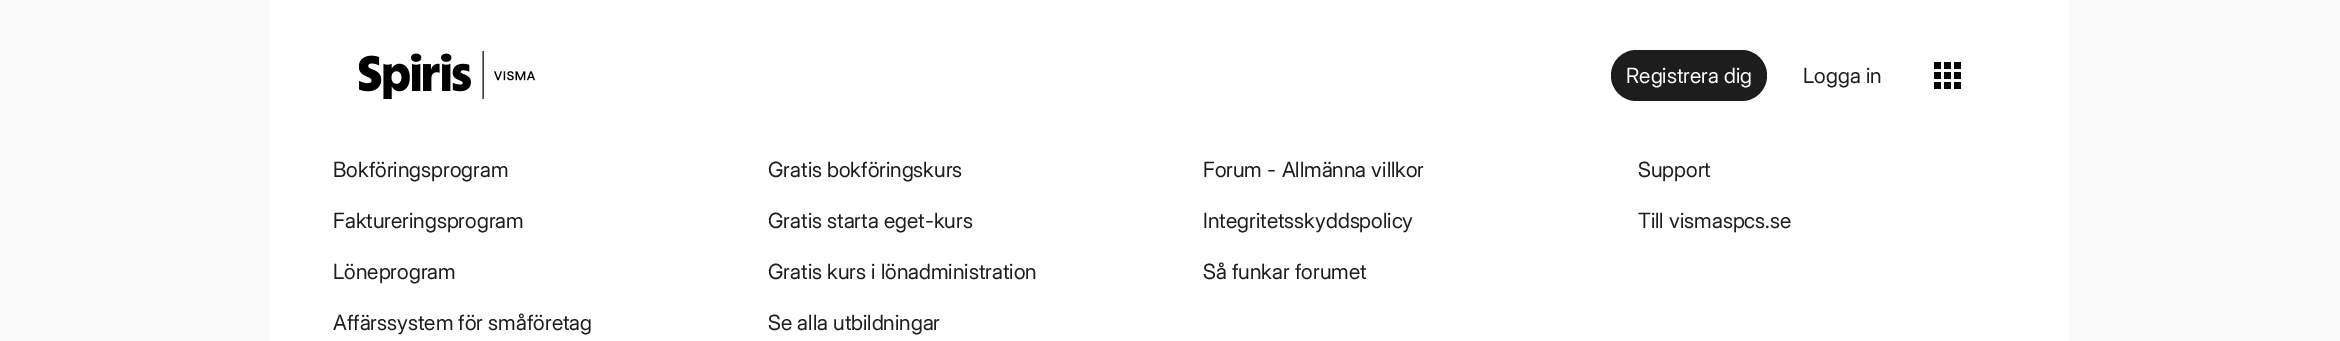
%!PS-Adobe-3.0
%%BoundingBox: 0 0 2340 341
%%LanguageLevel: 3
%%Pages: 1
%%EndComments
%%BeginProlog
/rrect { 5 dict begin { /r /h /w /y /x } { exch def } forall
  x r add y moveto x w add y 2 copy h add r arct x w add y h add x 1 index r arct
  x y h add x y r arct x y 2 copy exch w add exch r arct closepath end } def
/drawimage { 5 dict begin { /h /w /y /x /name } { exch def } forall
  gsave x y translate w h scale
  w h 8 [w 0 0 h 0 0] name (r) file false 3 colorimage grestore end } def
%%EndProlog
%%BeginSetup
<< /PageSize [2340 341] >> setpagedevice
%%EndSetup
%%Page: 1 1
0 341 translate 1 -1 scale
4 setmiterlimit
0.98 setgray
0 0 2340 341 rectfill
1 setgray
270 0 1800 341 rectfill
(images/1.raw) 359 51 177 48 drawimage
0.114 0.114 0.118 setrgbcolor
1611 50 156 51 25.5 rrect fill
(images/2.raw) 1934 62 27 27 drawimage
/InterDisplay-Regular [21 0 0 -21 0 0] selectfont
1 setgray
1626 83 moveto (Registrera dig) show
0.114 0.114 0.118 setrgbcolor
1803 83 moveto (Logga in) show
333 177 moveto (Bokföringsprogram) show
333 228 moveto (Faktureringsprogram) show
333 279 moveto (Löneprogram) show
333 330 moveto (Affärssystem för småföretag) show
768 177 moveto (Gratis bokföringskurs) show
768 228 moveto (Gratis starta eget-kurs) show
768 279 moveto (Gratis kurs i lönadministration) show
768 330 moveto (Se alla utbildningar) show
1203 177 moveto (Forum - Allmänna villkor) show
1203 228 moveto (Integritetsskyddspolicy) show
1203 279 moveto (Så funkar forumet) show
1638 177 moveto (Support) show
1638 228 moveto (Till vismaspcs.se) show
showpage
%%EOF
